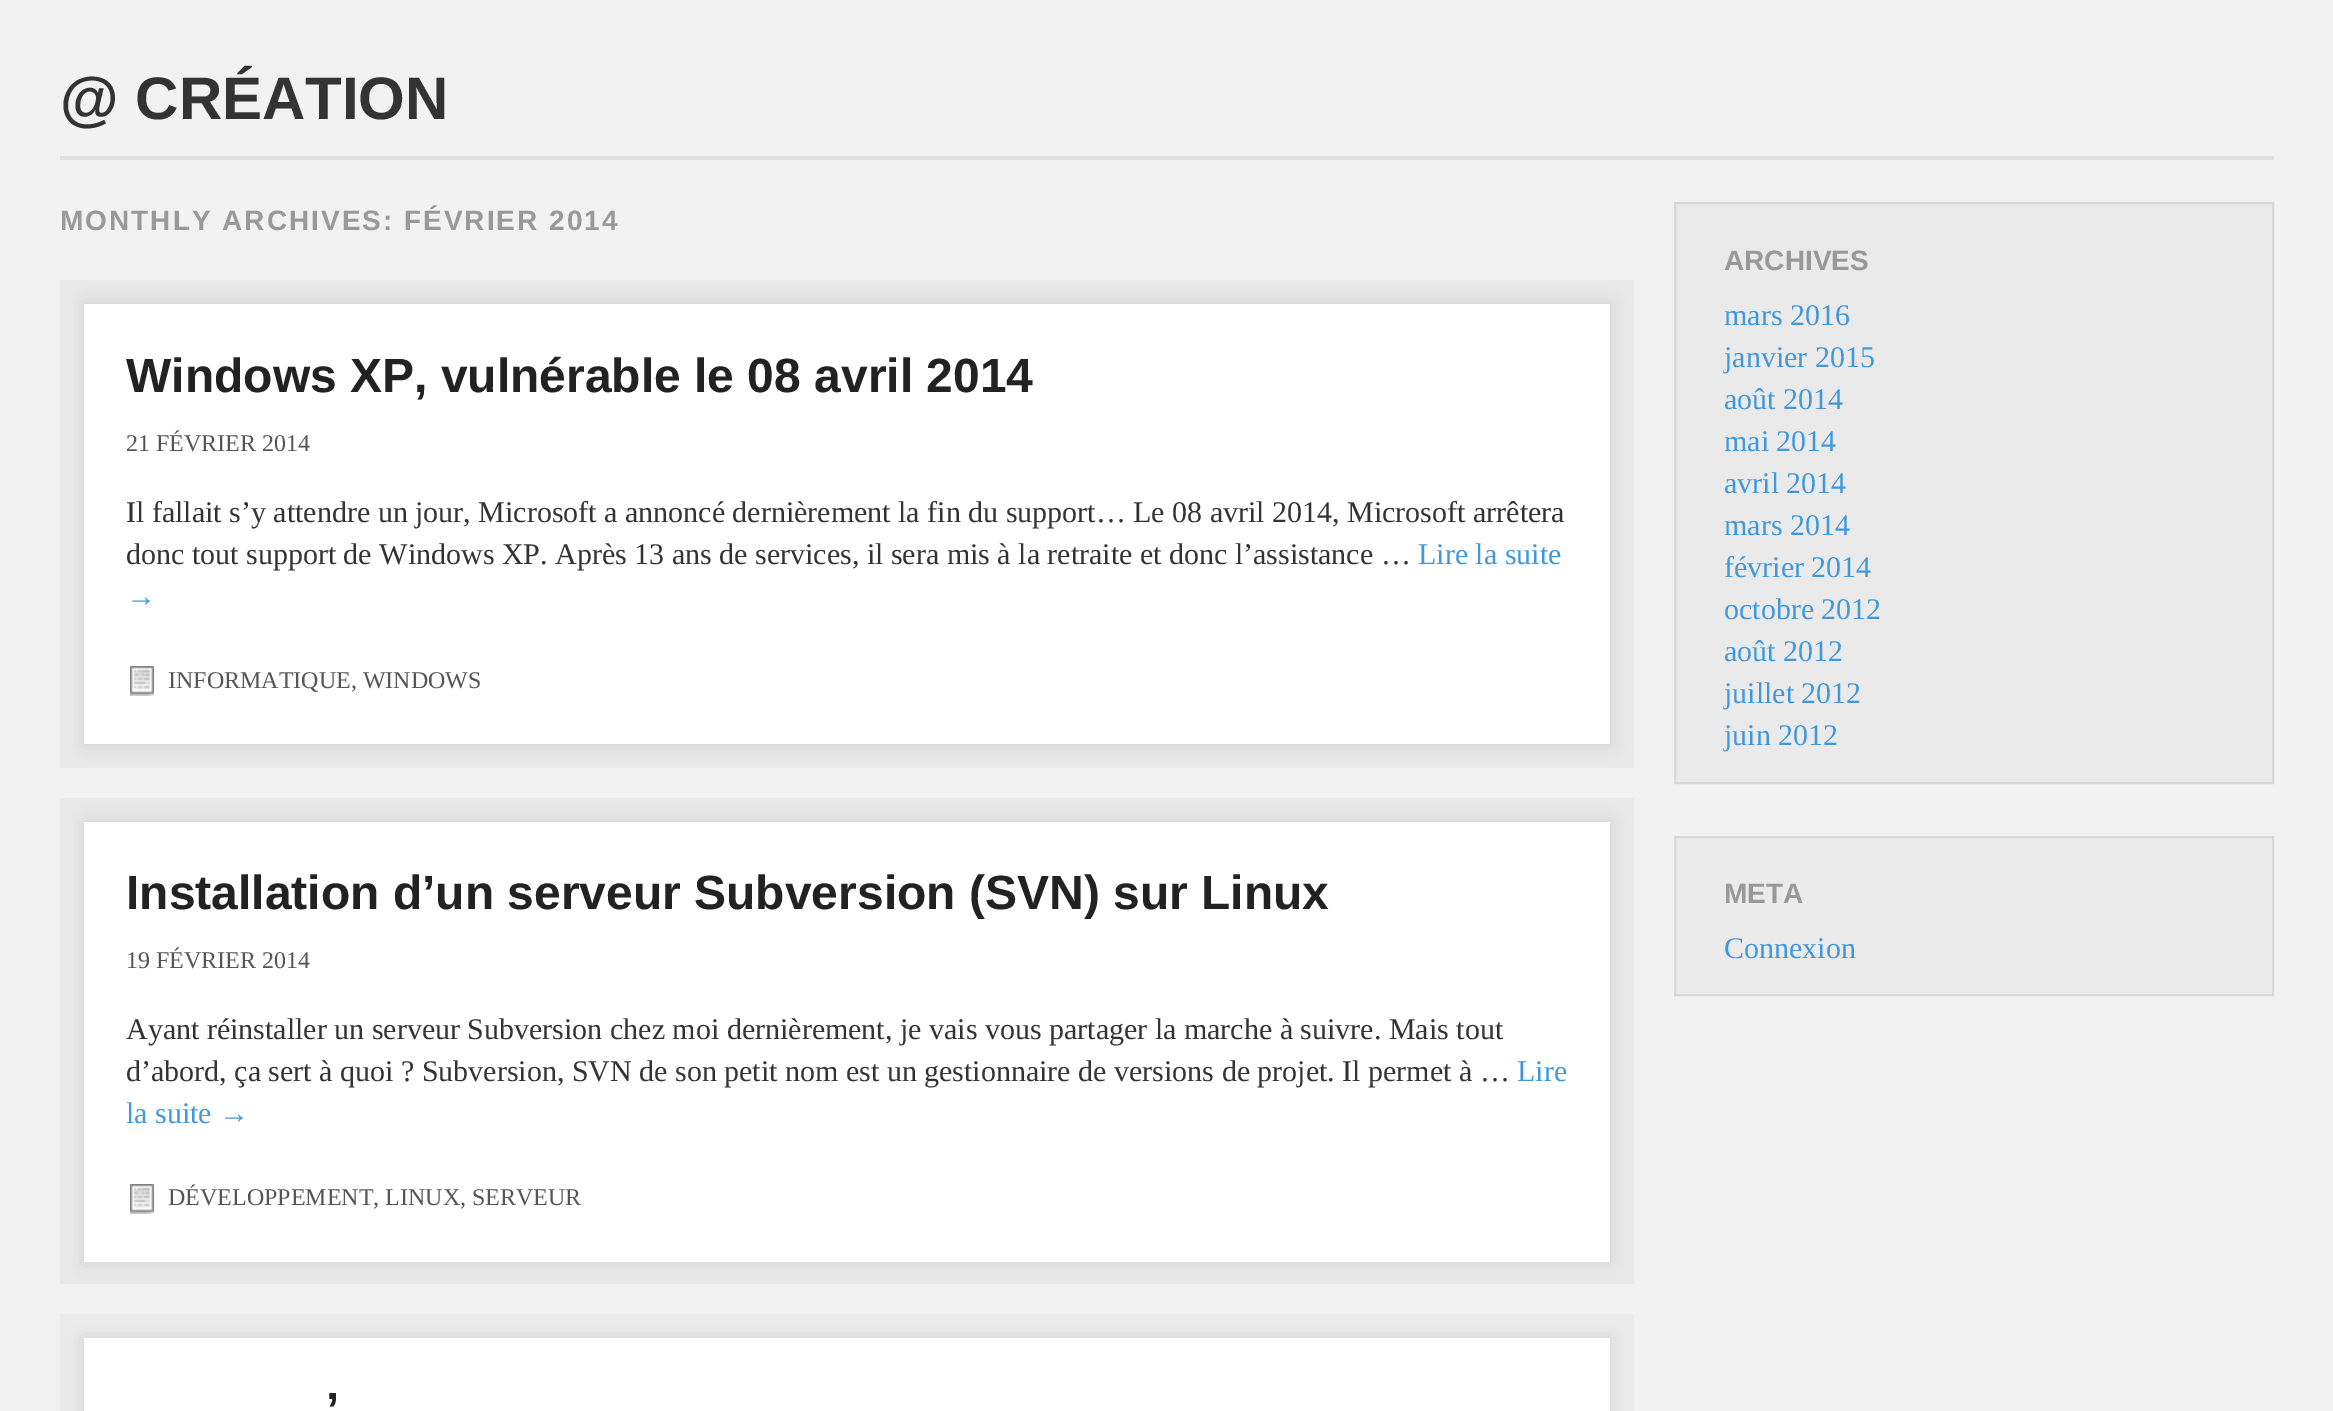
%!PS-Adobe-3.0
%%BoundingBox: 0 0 2333 1411
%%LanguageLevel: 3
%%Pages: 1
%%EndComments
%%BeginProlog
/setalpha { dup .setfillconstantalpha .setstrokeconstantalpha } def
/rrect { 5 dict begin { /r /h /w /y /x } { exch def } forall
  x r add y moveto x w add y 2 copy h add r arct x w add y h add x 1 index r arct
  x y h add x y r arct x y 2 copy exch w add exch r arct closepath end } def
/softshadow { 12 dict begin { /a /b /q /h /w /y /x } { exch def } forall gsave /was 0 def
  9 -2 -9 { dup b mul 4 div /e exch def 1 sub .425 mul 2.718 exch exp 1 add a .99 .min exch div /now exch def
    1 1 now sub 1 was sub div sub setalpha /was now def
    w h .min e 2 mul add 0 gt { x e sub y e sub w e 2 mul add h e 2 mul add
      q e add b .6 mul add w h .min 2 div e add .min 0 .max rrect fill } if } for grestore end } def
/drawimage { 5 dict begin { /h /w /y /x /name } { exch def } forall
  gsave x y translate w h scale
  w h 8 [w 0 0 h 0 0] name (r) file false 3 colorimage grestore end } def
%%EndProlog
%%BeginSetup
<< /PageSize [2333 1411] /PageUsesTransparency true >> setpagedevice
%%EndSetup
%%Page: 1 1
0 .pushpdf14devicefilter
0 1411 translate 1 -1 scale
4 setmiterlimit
0.949 setgray
0 0 2333 1411 rectfill
0.875 setgray
60 156 2214 4 rectfill
0.914 setgray
60 280 1574 488 rectfill
0 setgray
84 304 1526 440 0 8 0.1 softshadow
1 setgray
84 304 1526 440 rectfill
(images/1.raw) 130 666 24 30 drawimage
0.914 setgray
60 798 1574 486 rectfill
0 setgray
84 822 1526 440 0 8 0.1 softshadow
1 setgray
84 822 1526 440 rectfill
(images/1.raw) 130 1184 24 30 drawimage
0.922 setgray
60 1314 1574 97 rectfill
0 setgray
84 1338 1526 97 0 8 0.1 softshadow
1 setgray
84 1338 1526 73 rectfill
0.918 setgray
newpath 1675 203 moveto 2273 203 lineto 2273 783 lineto 1675 783 lineto closepath gsave fill grestore
0.843 setgray
2 setlinewidth
stroke
0.922 setgray
newpath 1675 837 moveto 2273 837 lineto 2273 995 lineto 1675 995 lineto closepath gsave fill grestore
0.847 setgray
stroke
/LiberationSans-Bold [60 0 0 -60 0 0] selectfont
0.2 setgray
60 119 moveto (@ CRÉATION) show
/LiberationSans-Bold [28 0 0 -28 0 0] selectfont
0.6 setgray
60 230 moveto 2 0 (MONTHLY ARCHIVES: FÉVRIER 2014) ashow
/LiberationSans-Bold [48 0 0 -48 0 0] selectfont
0.133 setgray
126 392 moveto (Windows XP, vulnérable le 08 avril 2014) show
/LiberationSerif-Regular [24 0 0 -24 0 0] selectfont
0.333 setgray
126 451 moveto (21 FÉVRIER 2014) show
/LiberationSerif-Regular [30 0 0 -30 0 0] selectfont
0.2 setgray
126 522 moveto (Il fallait s’y attendre un jour, Microsoft a annoncé dernièrement la fin du support… Le 08 avril 2014, Microsoft arrêtera) show
126 564 moveto (donc tout support de Windows XP. Après 13 ans de services, il sera mis à la retraite et donc l’assistance …) show
0.247 0.596 0.859 setrgbcolor
1418 564 moveto (Lire la suite) show
126 606 moveto (→) show
/LiberationSerif-Regular [24 0 0 -24 0 0] selectfont
0.333 setgray
168 688 moveto (INFORMATIQUE, WINDOWS) show
/LiberationSans-Bold [48 0 0 -48 0 0] selectfont
0.133 setgray
126 909 moveto (Installation d’un serveur Subversion \(SVN\) sur Linux) show
/LiberationSerif-Regular [24 0 0 -24 0 0] selectfont
0.333 setgray
126 968 moveto (19 FÉVRIER 2014) show
/LiberationSerif-Regular [30 0 0 -30 0 0] selectfont
0.2 setgray
126 1039 moveto (Ayant réinstaller un serveur Subversion chez moi dernièrement, je vais vous partager la marche à suivre. Mais tout) show
126 1081 moveto (d’abord, ça sert à quoi ? Subversion, SVN de son petit nom est un gestionnaire de versions de projet. Il permet à …) show
0.247 0.596 0.859 setrgbcolor
1517 1081 moveto (Lire) show
126 1123 moveto (la suite →) show
/LiberationSerif-Regular [24 0 0 -24 0 0] selectfont
0.333 setgray
168 1205 moveto (DÉVELOPPEMENT, LINUX, SERVEUR) show
/LiberationSans-Bold [48 0 0 -48 0 0] selectfont
0.133 setgray
326 1426 moveto (’) show
/LiberationSans-Bold [28 0 0 -28 0 0] selectfont
0.6 setgray
1724 270 moveto (ARCHIVES) show
/LiberationSerif-Regular [30 0 0 -30 0 0] selectfont
0.247 0.596 0.859 setrgbcolor
1724 325 moveto (mars 2016) show
1724 367 moveto (janvier 2015) show
1724 409 moveto (août 2014) show
1724 451 moveto (mai 2014) show
1724 493 moveto (avril 2014) show
1724 535 moveto (mars 2014) show
1724 577 moveto (février 2014) show
1724 619 moveto (octobre 2012) show
1724 661 moveto (août 2012) show
1724 703 moveto (juillet 2012) show
1724 745 moveto (juin 2012) show
/LiberationSans-Bold [28 0 0 -28 0 0] selectfont
0.6 setgray
1724 903 moveto (META) show
/LiberationSerif-Regular [30 0 0 -30 0 0] selectfont
0.247 0.596 0.859 setrgbcolor
1724 958 moveto (Connexion) show
.poppdf14devicefilter showpage
%%EOF
